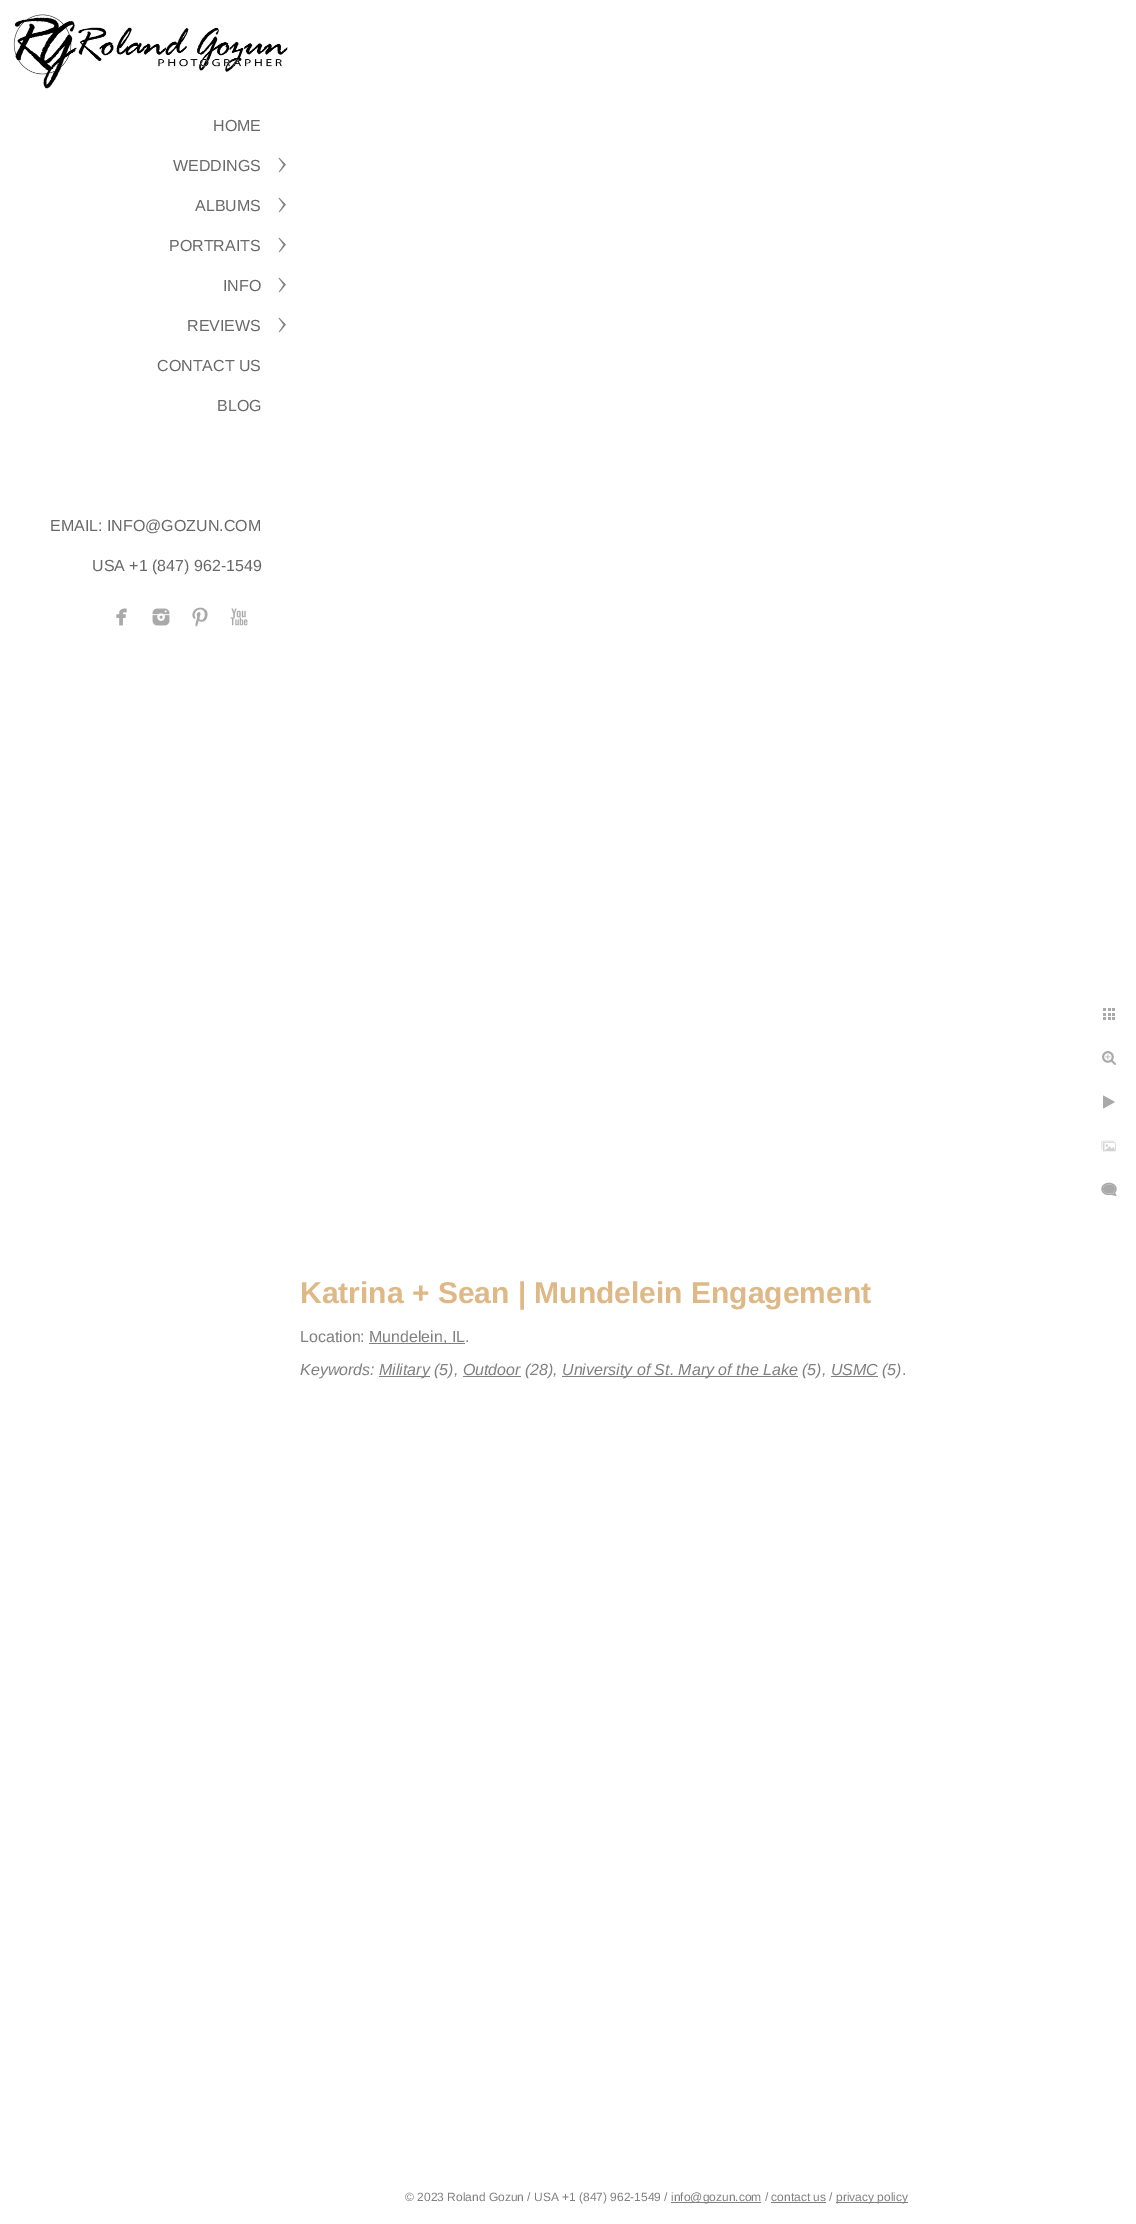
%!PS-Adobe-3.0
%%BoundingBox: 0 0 1136 2224
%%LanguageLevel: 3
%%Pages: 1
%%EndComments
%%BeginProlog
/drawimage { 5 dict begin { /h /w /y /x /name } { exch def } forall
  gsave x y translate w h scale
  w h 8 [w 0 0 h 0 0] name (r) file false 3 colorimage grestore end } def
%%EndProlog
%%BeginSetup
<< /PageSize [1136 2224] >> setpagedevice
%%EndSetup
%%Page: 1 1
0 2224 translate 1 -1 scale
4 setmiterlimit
1 setgray
0 0 1136 2224 rectfill
(images/1.raw) 13 14 275 75 drawimage
(images/2.raw) 278 157 8 16 drawimage
(images/2.raw) 278 197 8 16 drawimage
(images/2.raw) 278 237 8 16 drawimage
(images/2.raw) 278 277 8 16 drawimage
(images/2.raw) 278 317 8 16 drawimage
(images/3.raw) 116 608 11 18 drawimage
(images/4.raw) 152 608 18 18 drawimage
(images/5.raw) 192 607 16 20 drawimage
(images/6.raw) 230 608 18 18 drawimage
(images/7.raw) 1103 1008 12 12 drawimage
(images/8.raw) 1102 1051 14 14 drawimage
(images/9.raw) 1103 1095 12 14 drawimage
(images/10.raw) 1101 1140 15 12 drawimage
(images/11.raw) 1101 1182 16 15 drawimage
0.502 setgray
369 1343 96 1 rectfill
379 1376 51 1 rectfill
463 1376 58 1 rectfill
562 1376 236 1 rectfill
831 1376 47 1 rectfill
671 2202 90 1 rectfill
836 2202 72 1 rectfill
771 2202 55 1 rectfill
/LiberationSans-Regular [16 0 0 -16 0 0] selectfont
0.412 setgray
213 131 moveto (HOME) show
173 171 moveto (WEDDINGS) show
195 211 moveto (ALBUMS) show
169 251 moveto (PORTRAITS) show
223 291 moveto (INFO) show
187 331 moveto (REVIEWS) show
157 371 moveto (CONTACT US) show
217 411 moveto (BLOG) show
50 531 moveto (EMAIL: INFO@GOZUN.COM) show
92 571 moveto (USA +1 \(847\) 962-1549) show
/LiberationSans-Bold [30 0 0 -30 0 0] selectfont
0.871 0.722 0.529 setrgbcolor
300 1303 moveto (Katrina + Sean | Mundelein Engagement) show
/LiberationSans-Regular [16 0 0 -16 0 0] selectfont
0.502 setgray
300 1342 moveto (Location:) show
369 1342 moveto (Mundelein, IL.) show
/LiberationSans-Italic [16 0 0 -16 0 0] selectfont
300 1375 moveto (Keywords:) show
379 1375 moveto (Military \(5\), Outdoor \(28\),) show
562 1375 moveto (University of St. Mary of the Lake \(5\), USMC \(5\)) show
/LiberationSans-Regular [16 0 0 -16 0 0] selectfont
902 1375 moveto (.) show
/LiberationSans-Regular [12 0 0 -12 0 0] selectfont
405 2201 moveto (© 2023 Roland Gozun / USA +1 \(847\) 962-1549 /) show
671 2201 moveto (info@gozun.com / contact us /) show
836 2201 moveto (privacy policy) show
showpage
%%EOF
